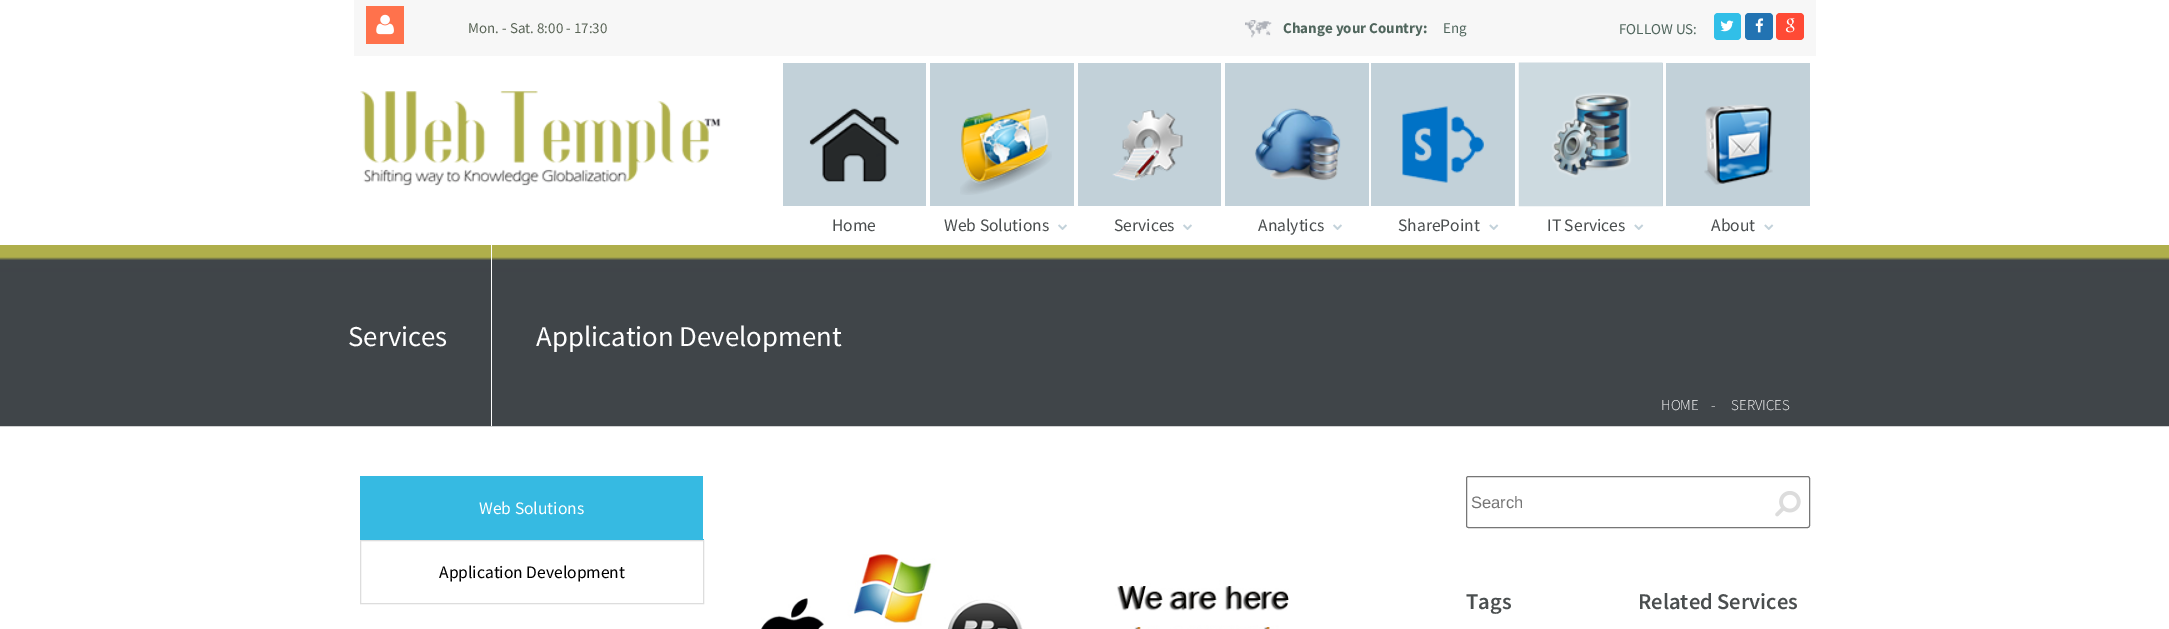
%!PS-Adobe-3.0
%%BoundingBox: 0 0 2169 629
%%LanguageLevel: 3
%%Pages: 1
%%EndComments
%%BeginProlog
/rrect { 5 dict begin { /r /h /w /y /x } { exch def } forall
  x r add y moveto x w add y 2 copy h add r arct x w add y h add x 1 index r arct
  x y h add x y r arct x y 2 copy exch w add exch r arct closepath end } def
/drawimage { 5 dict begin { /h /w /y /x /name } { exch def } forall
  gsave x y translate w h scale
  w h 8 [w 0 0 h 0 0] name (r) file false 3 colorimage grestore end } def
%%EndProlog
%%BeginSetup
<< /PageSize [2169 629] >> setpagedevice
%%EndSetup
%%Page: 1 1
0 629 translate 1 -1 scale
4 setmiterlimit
1 setgray
0 0 2169 629 rectfill
0.969 setgray
354 0 1462 56 rectfill
1 0.447 0.298 setrgbcolor
366 6 38 38 rectfill
(images/1.raw) 376 14 18 21 drawimage
(images/2.raw) 1245 20 27 18 drawimage
0.192 0.749 0.91 setrgbcolor
1714 13 27 27 4 rrect fill
(images/3.raw) 1720 20 14 12 drawimage
0.133 0.451 0.698 setrgbcolor
1745 13 28 27 4 rrect fill
(images/4.raw) 1755 18 9 15 drawimage
1 0.29 0.208 setrgbcolor
1776 13 28 27 4 rrect fill
(images/5.raw) 1785 18 10 15 drawimage
(images/6.raw) 360 91 361 95 drawimage
0.761 0.82 0.851 setrgbcolor
783 63 143 143 rectfill
(images/7.raw) 809 108 90 74 drawimage
930 63 144 143 rectfill
(images/8.raw) 960 108 92 87 drawimage
(images/9.raw) 1058 224 9 6 drawimage
1078 63 143 143 rectfill
(images/10.raw) 1112 110 71 71 drawimage
(images/9.raw) 1183 224 9 6 drawimage
1225 63 144 143 rectfill
(images/11.raw) 1254 108 87 73 drawimage
(images/9.raw) 1333 224 9 6 drawimage
1371 63 144 143 rectfill
(images/12.raw) 1402 106 82 77 drawimage
(images/13.raw) 1489 224 10 6 drawimage
1662 63 1 143 rectfill
(images/14.raw) 1518 62 145 145 drawimage
(images/13.raw) 1634 224 10 6 drawimage
1666 63 144 143 rectfill
(images/15.raw) 1704 104 69 81 drawimage
(images/13.raw) 1764 224 10 6 drawimage
(images/16.raw) 0 245 2169 182 drawimage
1 setgray
491 245 1 181 rectfill
0.212 0.729 0.886 setrgbcolor
360 476 343 63 rectfill
360 539 344 1 rectfill
0.867 setgray
360.5 540.5 343 63 rectstroke
(images/17.raw) 761 554 528 75 drawimage
0.463 setgray
1466.5 476.5 343 51 2 rrect stroke
(images/18.raw) 1775 491 26 26 drawimage
/SourceSansPro-Regular [15 0 0 -15 0 0] selectfont
0.349 0.392 0.337 setrgbcolor
468 33 moveto (Mon. - Sat. 8:00 - 17:30) show
/SourceSansPro-Bold [15 0 0 -15 0 0] selectfont
0.314 0.4 0.365 setrgbcolor
1283 33 moveto (Change your Country:) show
/SourceSansPro-Regular [15 0 0 -15 0 0] selectfont
1443 33 moveto (Eng) show
1619 34 moveto (FOLLOW US:) show
/SourceSansPro-Regular [17.5 0 0 -17.5 0 0] selectfont
0.29 0.306 0.31 setrgbcolor
832 231 moveto (Home) show
944 231 moveto (Web Solutions) show
1114 231 moveto (Services) show
1258 231 moveto (Analytics) show
1398 231 moveto (SharePoint) show
1547 231 moveto (IT Services) show
1711 231 moveto (About) show
/SourceSansPro-Regular [28.75 0 0 -28.75 0 0] selectfont
1 setgray
348 346 moveto (Services) show
536 346 moveto (Application Development) show
/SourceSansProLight-Light [15 0 0 -15 0 0] selectfont
1661 410 moveto (HOME) show
1711 410 moveto (-) show
1731 410 moveto (SERVICES) show
/SourceSansPro-Regular [17.5 0 0 -17.5 0 0] selectfont
479 514 moveto (Web Solutions) show
0 setgray
439 578 moveto (Application Development) show
/LiberationSans-Regular [16.5 0 0 -16.5 0 0] selectfont
0.459 setgray
1471 508 moveto (Search) show
/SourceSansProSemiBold-SemiBold [22.5 0 0 -22.5 0 0] selectfont
0.29 0.306 0.31 setrgbcolor
1466 609 moveto (Tags) show
1638 609 moveto (Related Services) show
showpage
%%EOF
